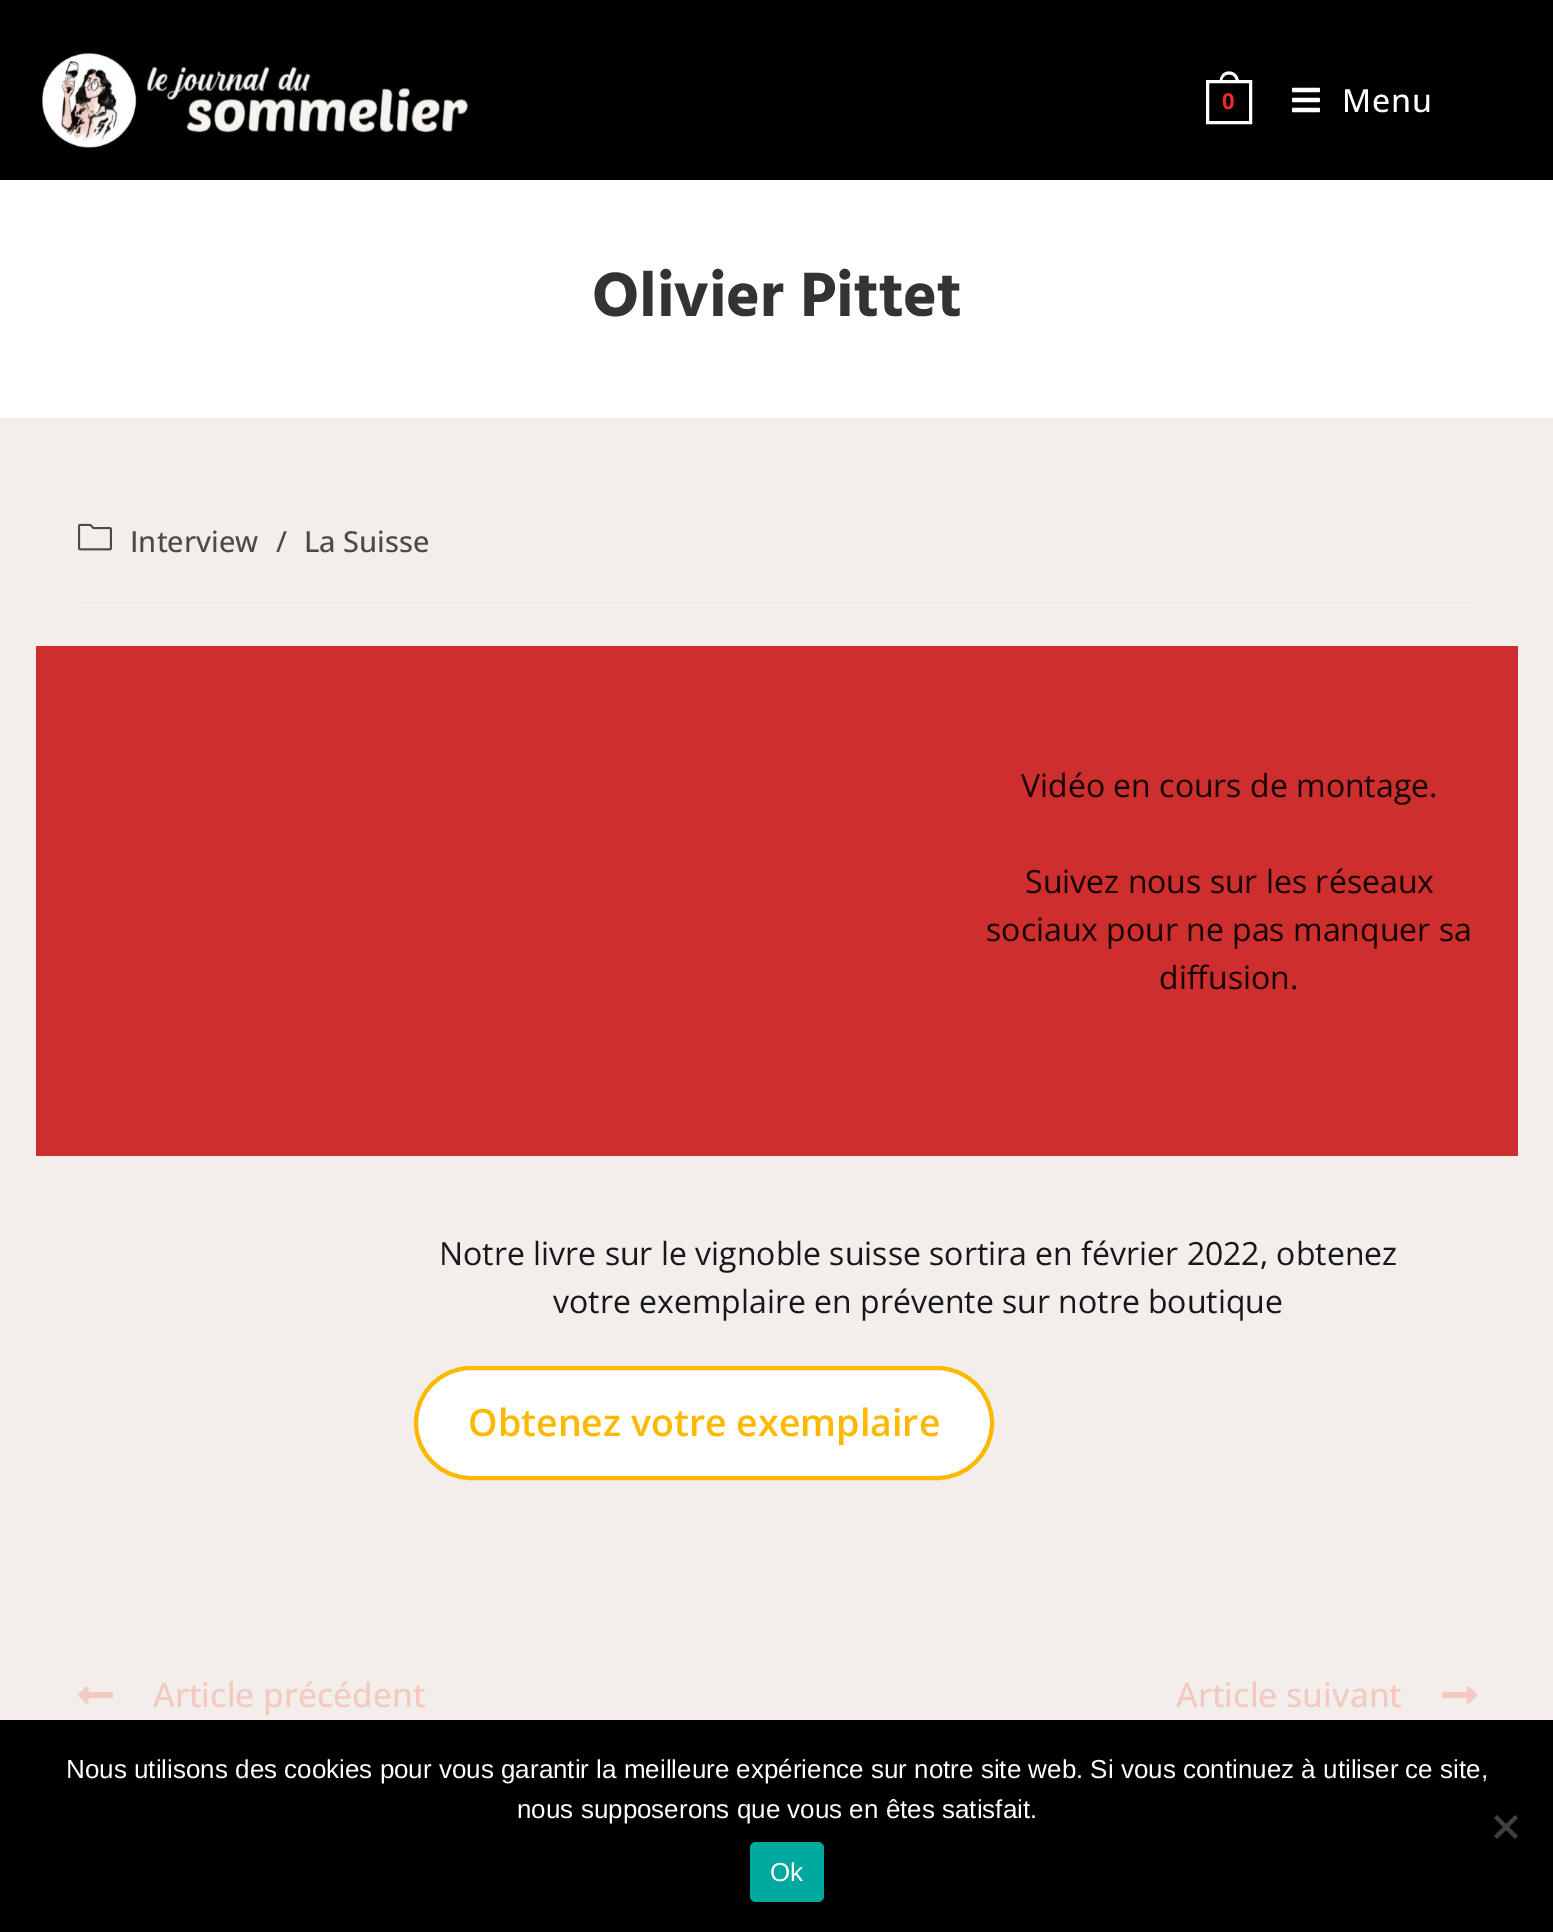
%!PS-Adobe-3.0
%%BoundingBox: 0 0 1553 1932
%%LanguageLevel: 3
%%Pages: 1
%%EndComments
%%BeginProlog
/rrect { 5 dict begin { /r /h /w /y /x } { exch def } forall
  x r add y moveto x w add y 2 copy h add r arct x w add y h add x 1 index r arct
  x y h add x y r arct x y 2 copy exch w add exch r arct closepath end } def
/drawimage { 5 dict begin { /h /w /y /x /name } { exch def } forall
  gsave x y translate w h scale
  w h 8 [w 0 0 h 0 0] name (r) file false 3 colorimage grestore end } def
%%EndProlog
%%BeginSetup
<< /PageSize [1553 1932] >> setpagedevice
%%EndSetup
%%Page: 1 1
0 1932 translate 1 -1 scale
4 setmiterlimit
0.953 0.933 0.922 setrgbcolor
0 0 1553 1932 rectfill
0 setgray
0 0 1553 180 rectfill
(images/1.raw) 42 52 428 96 drawimage
1 setgray
3 setlinewidth
1207.5 81.5 43 41 rectstroke
newpath 1229 71.5 moveto 1235.5 71.5 1239 77 1239 83 curveto 1219.5 83 lineto 1219.5 77 1222.5 71.5 1229 71.5 curveto closepath 1229 74.5 moveto 1234 74.5 1236 78.5 1236 83 curveto 1222 83 lineto 1222 78.5 1224 74.5 1229 74.5 curveto closepath eofill
(images/2.raw) 1292 87 28 26 drawimage
0 180 1553 238 rectfill
0.945 setgray
78 604 1398 2 rectfill
(images/3.raw) 78 523 34 28 drawimage
0.812 0.18 0.18 setrgbcolor
36 646 1482 510 rectfill
1 setgray
416 1368 576 110 55 rrect gsave fill grestore
0.988 0.725 0 setrgbcolor
4 setlinewidth
stroke
(images/4.raw) 78 1686 35 18 drawimage
(images/5.raw) 1442 1686 35 18 drawimage
0 setgray
0 1720 1553 212 rectfill
0.251 setgray
newpath 1515 1815 moveto 1518 1818 lineto 1497 1839 lineto 1494 1836 lineto closepath fill
newpath 1494 1818 moveto 1497 1815 lineto 1518 1836 lineto 1515 1839 lineto closepath fill
0 0.663 0.616 setrgbcolor
750 1842 74 60 6 rrect fill
/OpenSans-Bold [22 0 0 -22 0 0] selectfont
0.941 0.157 0.157 setrgbcolor
1222 109 moveto 1 0 (0) ashow
/OpenSans-Medium [32 0 0 -32 0 0] selectfont
1 setgray
1342 112 moveto 1 0 (Menu) ashow
/Hind-Bold [64 0 0 -64 0 0] selectfont
0.2 setgray
592 316 moveto (Olivier Pittet) show
/OpenSans-Medium [29 0 0 -29 0 0] selectfont
0.29 setgray
130 552 moveto (Interview) show
276 552 moveto (/) show
304 552 moveto (La Suisse) show
/OpenSans-Regular [32 0 0 -32 0 0] selectfont
0.082 0.02 0.02 setrgbcolor
1021 797 moveto (Vidéo en cours de montage.) show
1025 893 moveto (Suivez nous sur les réseaux) show
986 941 moveto (sociaux pour ne pas manquer sa) show
1159 989 moveto (diffusion.) show
0.094 setgray
439 1265 moveto (Notre livre sur le vignoble suisse sortira en février 2022, obtenez) show
553 1313 moveto (votre exemplaire en prévente sur notre boutique) show
/OpenSans-SemiBold [37.6 0 0 -37.6 0 0] selectfont
0.988 0.725 0 setrgbcolor
468 1436 moveto (Obtenez votre exemplaire) show
/OpenSans-Medium [33.5 0 0 -33.5 0 0] selectfont
0.949 0.792 0.753 setrgbcolor
153 1707 moveto (Article précédent) show
1176 1707 moveto (Article suivant) show
/LiberationSans-Regular [26 0 0 -26 0 0] selectfont
1 setgray
66 1778 moveto (Nous utilisons des cookies pour vous garantir la meilleure expérience sur notre site web. Si vous continuez à utiliser ce site,) show
517 1818 moveto (nous supposerons que vous en êtes satisfait.) show
770 1881 moveto (Ok) show
showpage
%%EOF
